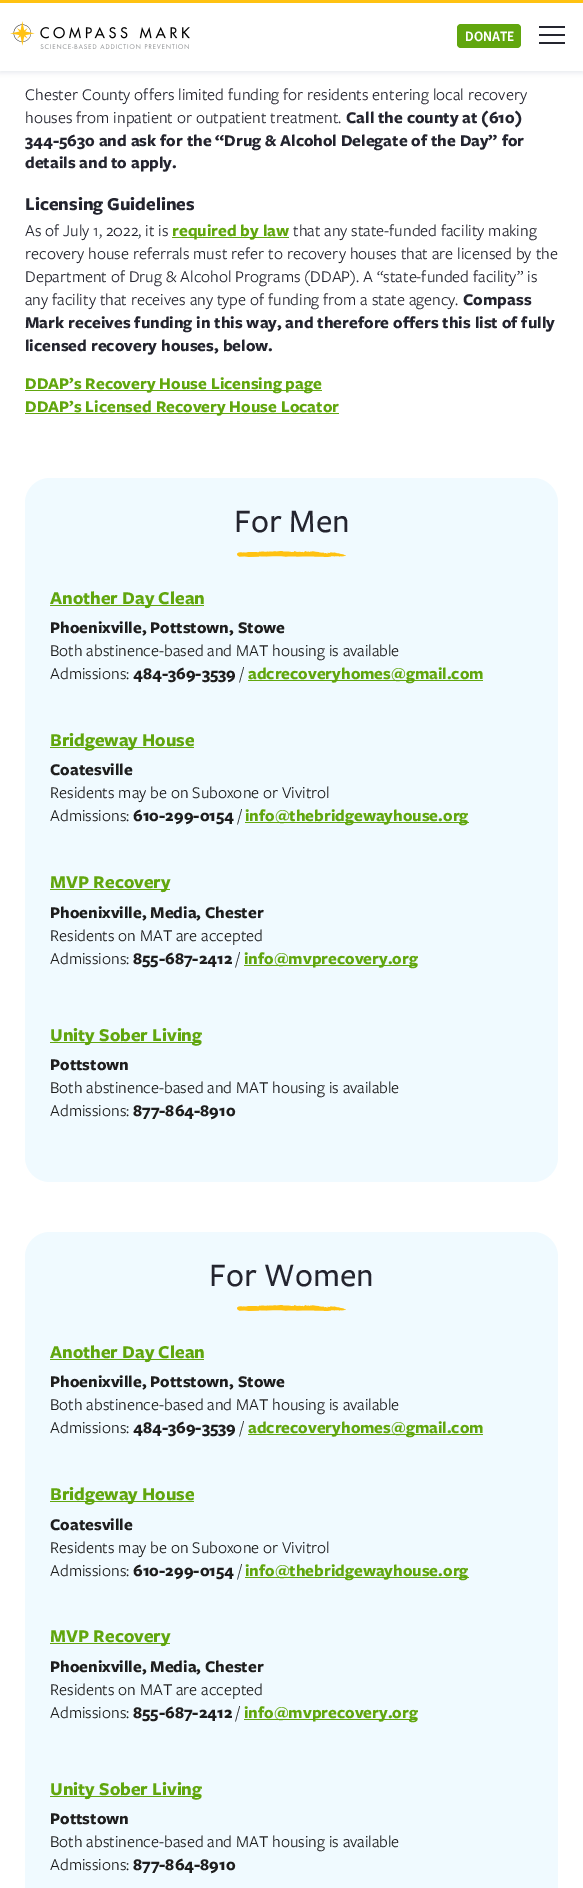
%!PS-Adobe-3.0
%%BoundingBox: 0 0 583 1888
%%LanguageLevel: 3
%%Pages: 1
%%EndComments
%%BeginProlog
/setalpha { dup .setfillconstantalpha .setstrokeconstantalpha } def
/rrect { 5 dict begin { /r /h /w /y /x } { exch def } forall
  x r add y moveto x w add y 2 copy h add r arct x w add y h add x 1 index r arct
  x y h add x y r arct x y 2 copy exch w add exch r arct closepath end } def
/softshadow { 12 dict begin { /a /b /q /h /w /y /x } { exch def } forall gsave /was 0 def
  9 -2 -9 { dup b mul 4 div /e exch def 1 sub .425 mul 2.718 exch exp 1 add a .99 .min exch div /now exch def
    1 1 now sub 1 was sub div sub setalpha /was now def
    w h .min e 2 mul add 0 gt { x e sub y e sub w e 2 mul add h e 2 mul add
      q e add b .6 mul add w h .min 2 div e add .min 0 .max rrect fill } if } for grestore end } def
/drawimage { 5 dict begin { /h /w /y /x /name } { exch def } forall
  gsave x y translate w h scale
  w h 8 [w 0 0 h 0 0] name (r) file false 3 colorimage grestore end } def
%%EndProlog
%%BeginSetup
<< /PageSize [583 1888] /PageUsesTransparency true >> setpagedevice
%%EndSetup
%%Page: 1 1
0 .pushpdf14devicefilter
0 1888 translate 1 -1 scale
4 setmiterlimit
1 setgray
0 0 583 1888 rectfill
0.067 0.114 0.29 setrgbcolor
0 2 583 71 0 2 0.08 softshadow
1 setgray
0 3 583 68 rectfill
1 0.761 0.071 setrgbcolor
0 0 583 3 rectfill
(images/1.raw) 10 21 180 28 drawimage
0.38 0.651 0.055 setrgbcolor
457 24 64 24 4 rrect fill
0.141 0.145 0.184 setrgbcolor
539 26 26 2 rectfill
539 34 26 2 rectfill
539 42 26 2 rectfill
0.38 0.651 0.055 setrgbcolor
172 237 117 1 rectfill
25 390 297 1 rectfill
25 413 314 1 rectfill
0.941 0.98 1 setrgbcolor
25 478 533 704 25 rrect fill
(images/2.raw) 237 551 109 6 drawimage
0.38 0.651 0.055 setrgbcolor
50 605 154 1 rectfill
248 680 235 1 rectfill
50 747 144 1 rectfill
245 822 224 1 rectfill
50 889 120 1 rectfill
244 965 173 1 rectfill
50 1042 151 1 rectfill
0.941 0.98 1 setrgbcolor
25 1232 533 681 25 rrect fill
(images/2.raw) 237 1305 109 6 drawimage
0.38 0.651 0.055 setrgbcolor
50 1359 154 1 rectfill
248 1434 235 1 rectfill
50 1501 144 1 rectfill
245 1577 224 1 rectfill
50 1643 120 1 rectfill
244 1719 173 1 rectfill
50 1796 151 1 rectfill
/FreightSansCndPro-SemiBold [15 0 0 -15 0 0] selectfont
1 setgray
465 41 moveto (DONATE) show
/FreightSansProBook-Regular [17 0 0 -17 0 0] selectfont
0.141 0.145 0.184 setrgbcolor
25 100 moveto (Chester County offers limited funding for residents entering local recovery) show
25 123 moveto (houses from inpatient or outpatient treatment.) show
/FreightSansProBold-Bold [17 0 0 -17 0 0] selectfont
346 123 moveto (Call the county at \(610\)) show
25 146 moveto (344-5630 and ask for the “Drug & Alcohol Delegate of the Day” for) show
25 168 moveto (details and to apply.) show
/FreightSansProBold-Bold [18.75 0 0 -18.75 0 0] selectfont
25 210 moveto (Licensing Guidelines) show
/FreightSansProBook-Regular [17 0 0 -17 0 0] selectfont
25 236 moveto (As of July 1, 2022, it is) show
/FreightSansProBold-Bold [17 0 0 -17 0 0] selectfont
0.38 0.651 0.055 setrgbcolor
172 236 moveto (required by law) show
/FreightSansProBook-Regular [17 0 0 -17 0 0] selectfont
0.141 0.145 0.184 setrgbcolor
293 236 moveto (that any state-funded facility making) show
25 259 moveto (recovery house referrals must refer to recovery houses that are licensed by the) show
25 282 moveto (Department of Drug & Alcohol Programs \(DDAP\). A “state-funded facility” is) show
25 305 moveto (any facility that receives any type of funding from a state agency.) show
/FreightSansProBold-Bold [17 0 0 -17 0 0] selectfont
463 305 moveto (Compass) show
25 328 moveto (Mark receives funding in this way, and therefore offers this list of fully) show
25 351 moveto (licensed recovery houses, below.) show
0.38 0.651 0.055 setrgbcolor
25 389 moveto (DDAP’s Recovery House Licensing page) show
25 412 moveto (DDAP’s Licensed Recovery House Locator) show
/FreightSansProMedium-Medium [34 0 0 -34 0 0] selectfont
0.141 0.145 0.184 setrgbcolor
234 532 moveto (For Men) show
/FreightSansProBold-Bold [18.75 0 0 -18.75 0 0] selectfont
0.38 0.651 0.055 setrgbcolor
50 604 moveto (Another Day Clean) show
/FreightSansProBold-Bold [17 0 0 -17 0 0] selectfont
0.118 setgray
50 633 moveto (Phoenixville, Pottstown, Stowe) show
/FreightSansProBook-Regular [17 0 0 -17 0 0] selectfont
50 656 moveto (Both abstinence-based and MAT housing is available) show
50 679 moveto (Admissions:) show
/FreightSansProBold-Bold [17 0 0 -17 0 0] selectfont
133 679 moveto (484-369-3539) show
/FreightSansProBook-Regular [17 0 0 -17 0 0] selectfont
240 679 moveto (/) show
/FreightSansProBold-Bold [17 0 0 -17 0 0] selectfont
0.38 0.651 0.055 setrgbcolor
248 679 moveto (adcrecoveryhomes@gmail.com) show
/FreightSansProBold-Bold [18.75 0 0 -18.75 0 0] selectfont
50 746 moveto (Bridgeway House) show
/FreightSansProBold-Bold [17 0 0 -17 0 0] selectfont
0.118 setgray
50 775 moveto (Coatesville) show
/FreightSansProBook-Regular [17 0 0 -17 0 0] selectfont
50 798 moveto (Residents may be on Suboxone or Vivitrol) show
50 821 moveto (Admissions:) show
/FreightSansProBold-Bold [17 0 0 -17 0 0] selectfont
133 821 moveto (610-299-0154) show
/FreightSansProBook-Regular [17 0 0 -17 0 0] selectfont
238 821 moveto (/) show
/FreightSansProBold-Bold [17 0 0 -17 0 0] selectfont
0.38 0.651 0.055 setrgbcolor
245 821 moveto (info@thebridgewayhouse.org) show
/FreightSansProBold-Bold [18.75 0 0 -18.75 0 0] selectfont
50 888 moveto (MVP Recovery) show
/FreightSansProBold-Bold [17 0 0 -17 0 0] selectfont
0.118 setgray
50 918 moveto (Phoenixville, Media, Chester) show
/FreightSansProBook-Regular [17 0 0 -17 0 0] selectfont
50 941 moveto (Residents on MAT are accepted) show
50 964 moveto (Admissions:) show
/FreightSansProBold-Bold [17 0 0 -17 0 0] selectfont
133 964 moveto (855-687-2412) show
/FreightSansProBook-Regular [17 0 0 -17 0 0] selectfont
236 964 moveto (/) show
/FreightSansProBold-Bold [17 0 0 -17 0 0] selectfont
0.38 0.651 0.055 setrgbcolor
244 964 moveto (info@mvprecovery.org) show
/FreightSansProBold-Bold [18.75 0 0 -18.75 0 0] selectfont
50 1041 moveto (Unity Sober Living) show
/FreightSansProBold-Bold [17 0 0 -17 0 0] selectfont
0.118 setgray
50 1070 moveto (Pottstown) show
/FreightSansProBook-Regular [17 0 0 -17 0 0] selectfont
50 1093 moveto (Both abstinence-based and MAT housing is available) show
50 1116 moveto (Admissions:) show
/FreightSansProBold-Bold [17 0 0 -17 0 0] selectfont
133 1116 moveto (877-864-8910) show
/FreightSansProMedium-Medium [34 0 0 -34 0 0] selectfont
0.141 0.145 0.184 setrgbcolor
209 1286 moveto (For Women) show
/FreightSansProBold-Bold [18.75 0 0 -18.75 0 0] selectfont
0.38 0.651 0.055 setrgbcolor
50 1358 moveto (Another Day Clean) show
/FreightSansProBold-Bold [17 0 0 -17 0 0] selectfont
0.118 setgray
50 1387 moveto (Phoenixville, Pottstown, Stowe) show
/FreightSansProBook-Regular [17 0 0 -17 0 0] selectfont
50 1410 moveto (Both abstinence-based and MAT housing is available) show
50 1433 moveto (Admissions:) show
/FreightSansProBold-Bold [17 0 0 -17 0 0] selectfont
133 1433 moveto (484-369-3539) show
/FreightSansProBook-Regular [17 0 0 -17 0 0] selectfont
240 1433 moveto (/) show
/FreightSansProBold-Bold [17 0 0 -17 0 0] selectfont
0.38 0.651 0.055 setrgbcolor
248 1433 moveto (adcrecoveryhomes@gmail.com) show
/FreightSansProBold-Bold [18.75 0 0 -18.75 0 0] selectfont
50 1500 moveto (Bridgeway House) show
/FreightSansProBold-Bold [17 0 0 -17 0 0] selectfont
0.118 setgray
50 1530 moveto (Coatesville) show
/FreightSansProBook-Regular [17 0 0 -17 0 0] selectfont
50 1553 moveto (Residents may be on Suboxone or Vivitrol) show
50 1576 moveto (Admissions:) show
/FreightSansProBold-Bold [17 0 0 -17 0 0] selectfont
133 1576 moveto (610-299-0154) show
/FreightSansProBook-Regular [17 0 0 -17 0 0] selectfont
238 1576 moveto (/) show
/FreightSansProBold-Bold [17 0 0 -17 0 0] selectfont
0.38 0.651 0.055 setrgbcolor
245 1576 moveto (info@thebridgewayhouse.org) show
/FreightSansProBold-Bold [18.75 0 0 -18.75 0 0] selectfont
50 1642 moveto (MVP Recovery) show
/FreightSansProBold-Bold [17 0 0 -17 0 0] selectfont
0.118 setgray
50 1672 moveto (Phoenixville, Media, Chester) show
/FreightSansProBook-Regular [17 0 0 -17 0 0] selectfont
50 1695 moveto (Residents on MAT are accepted) show
50 1718 moveto (Admissions:) show
/FreightSansProBold-Bold [17 0 0 -17 0 0] selectfont
133 1718 moveto (855-687-2412) show
/FreightSansProBook-Regular [17 0 0 -17 0 0] selectfont
236 1718 moveto (/) show
/FreightSansProBold-Bold [17 0 0 -17 0 0] selectfont
0.38 0.651 0.055 setrgbcolor
244 1718 moveto (info@mvprecovery.org) show
/FreightSansProBold-Bold [18.75 0 0 -18.75 0 0] selectfont
50 1795 moveto (Unity Sober Living) show
/FreightSansProBold-Bold [17 0 0 -17 0 0] selectfont
0.118 setgray
50 1824 moveto (Pottstown) show
/FreightSansProBook-Regular [17 0 0 -17 0 0] selectfont
50 1847 moveto (Both abstinence-based and MAT housing is available) show
50 1870 moveto (Admissions:) show
/FreightSansProBold-Bold [17 0 0 -17 0 0] selectfont
133 1870 moveto (877-864-8910) show
.poppdf14devicefilter showpage
%%EOF
